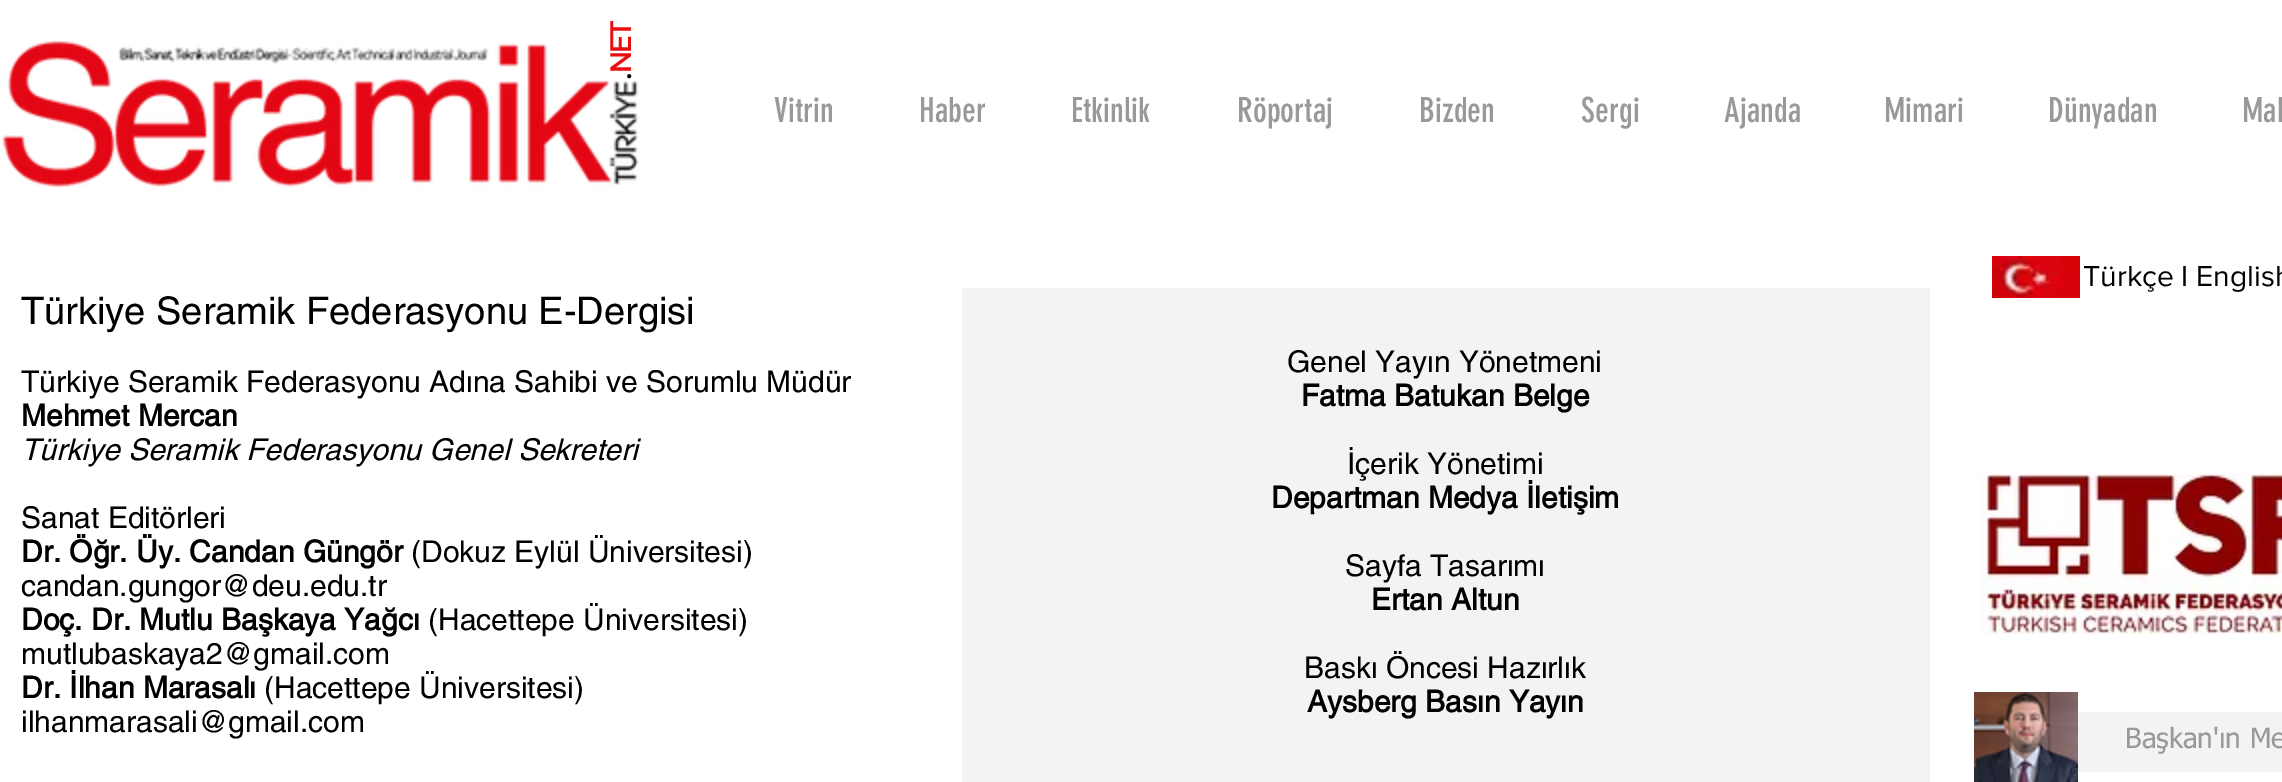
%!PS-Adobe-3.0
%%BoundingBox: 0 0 2282 782
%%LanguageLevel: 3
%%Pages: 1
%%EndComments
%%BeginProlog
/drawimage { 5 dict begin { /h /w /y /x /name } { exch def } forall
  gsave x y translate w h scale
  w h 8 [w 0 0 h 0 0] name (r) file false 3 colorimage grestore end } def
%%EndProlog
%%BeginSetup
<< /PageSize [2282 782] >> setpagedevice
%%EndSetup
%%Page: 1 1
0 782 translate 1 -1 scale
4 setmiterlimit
1 setgray
0 0 2282 782 rectfill
(images/1.raw) 1 40 638 148 drawimage
0.957 0.953 0.953 setrgbcolor
962 288 968 494 rectfill
(images/2.raw) 1992 256 88 42 drawimage
(images/3.raw) 1980 474 302 160 drawimage
(images/4.raw) 1974 692 104 90 drawimage
0.953 setgray
2078 712 204 60 rectfill
/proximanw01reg-Bold [30 0 0 -30 0 0] selectfont
0.922 0.055 0.055 setrgbcolor
gsave 631 73 translate -90 rotate 0 0 moveto -1.5 0 (NET) ashow grestore
0 setgray
gsave 631 80 translate -90 rotate 0 0 moveto (.) show grestore
/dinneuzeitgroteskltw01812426-Regular [34 0 0 -34 0 0] selectfont
0.6 0.6 0.592 setrgbcolor
774 122 moveto (Vitrin) show
919 122 moveto (Haber) show
1071 122 moveto (Etkinlik) show
1237 122 moveto (Röportaj) show
1419 122 moveto (Bizden) show
1581 122 moveto (Sergi) show
1724 122 moveto (Ajanda) show
1884 122 moveto (Mimari) show
2048 122 moveto (Dünyadan) show
2242 122 moveto (Mak) show
/helvetica-Regular [38 0 0 -38 0 0] selectfont
0 setgray
21 324 moveto (Türkiye Seramik Federasyonu E-Dergisi) show
/helvetica-Regular [30 0 0 -30 0 0] selectfont
21 392 moveto (Türkiye Seramik Federasyonu Adına Sahibi ve Sorumlu Müdür) show
/helvetica-Bold [30 0 0 -30 0 0] selectfont
21 426 moveto (Mehmet Mercan) show
/helvetica-Italic [30 0 0 -30 0 0] selectfont
21 460 moveto (Türkiye Seramik Federasyonu Genel Sekreteri) show
/helvetica-Regular [30 0 0 -30 0 0] selectfont
21 528 moveto (Sanat Editörleri) show
/helvetica-Bold [30 0 0 -30 0 0] selectfont
21 562 moveto (Dr. Öğr. Üy. Candan Güngör) show
/helvetica-Regular [30 0 0 -30 0 0] selectfont
411 562 moveto (\(Dokuz Eylül Üniversitesi\)) show
21 596 moveto (candan.gungor@deu.edu.tr) show
/helvetica-Bold [30 0 0 -30 0 0] selectfont
21 630 moveto (Doç. Dr. Mutlu Başkaya Yağcı) show
/helvetica-Regular [30 0 0 -30 0 0] selectfont
428 630 moveto (\(Hacettepe Üniversitesi\)) show
21 664 moveto (mutlubaskaya2@gmail.com) show
/helvetica-Bold [30 0 0 -30 0 0] selectfont
21 698 moveto (Dr. İlhan Marasalı) show
/helvetica-Regular [30 0 0 -30 0 0] selectfont
264 698 moveto (\(Hacettepe Üniversitesi\)) show
21 732 moveto (ilhanmarasali@gmail.com) show
1287 372 moveto (Genel Yayın Yönetmeni) show
/helvetica-Bold [30 0 0 -30 0 0] selectfont
1301 406 moveto (Fatma Batukan Belge) show
/helvetica-Regular [30 0 0 -30 0 0] selectfont
1347 474 moveto (İçerik Yönetimi) show
/helvetica-Bold [30 0 0 -30 0 0] selectfont
1271 508 moveto (Departman Medya İletişim) show
/helvetica-Regular [30 0 0 -30 0 0] selectfont
1345 576 moveto (Sayfa Tasarımı) show
/helvetica-Bold [30 0 0 -30 0 0] selectfont
1371 610 moveto (Ertan Altun) show
/helvetica-Regular [30 0 0 -30 0 0] selectfont
1304 678 moveto (Baskı Öncesi Hazırlık) show
/helvetica-Bold [30 0 0 -30 0 0] selectfont
1307 712 moveto (Aysberg Basın Yayın) show
/proximanw01reg-Regular [30 0 0 -30 0 0] selectfont
2083 286 moveto (Türkçe I English) show
/tahoma-Regular [28 0 0 -28 0 0] selectfont
0.6 0.6 0.592 setrgbcolor
2125 748 moveto (Başkan'ın Me) show
showpage
%%EOF
